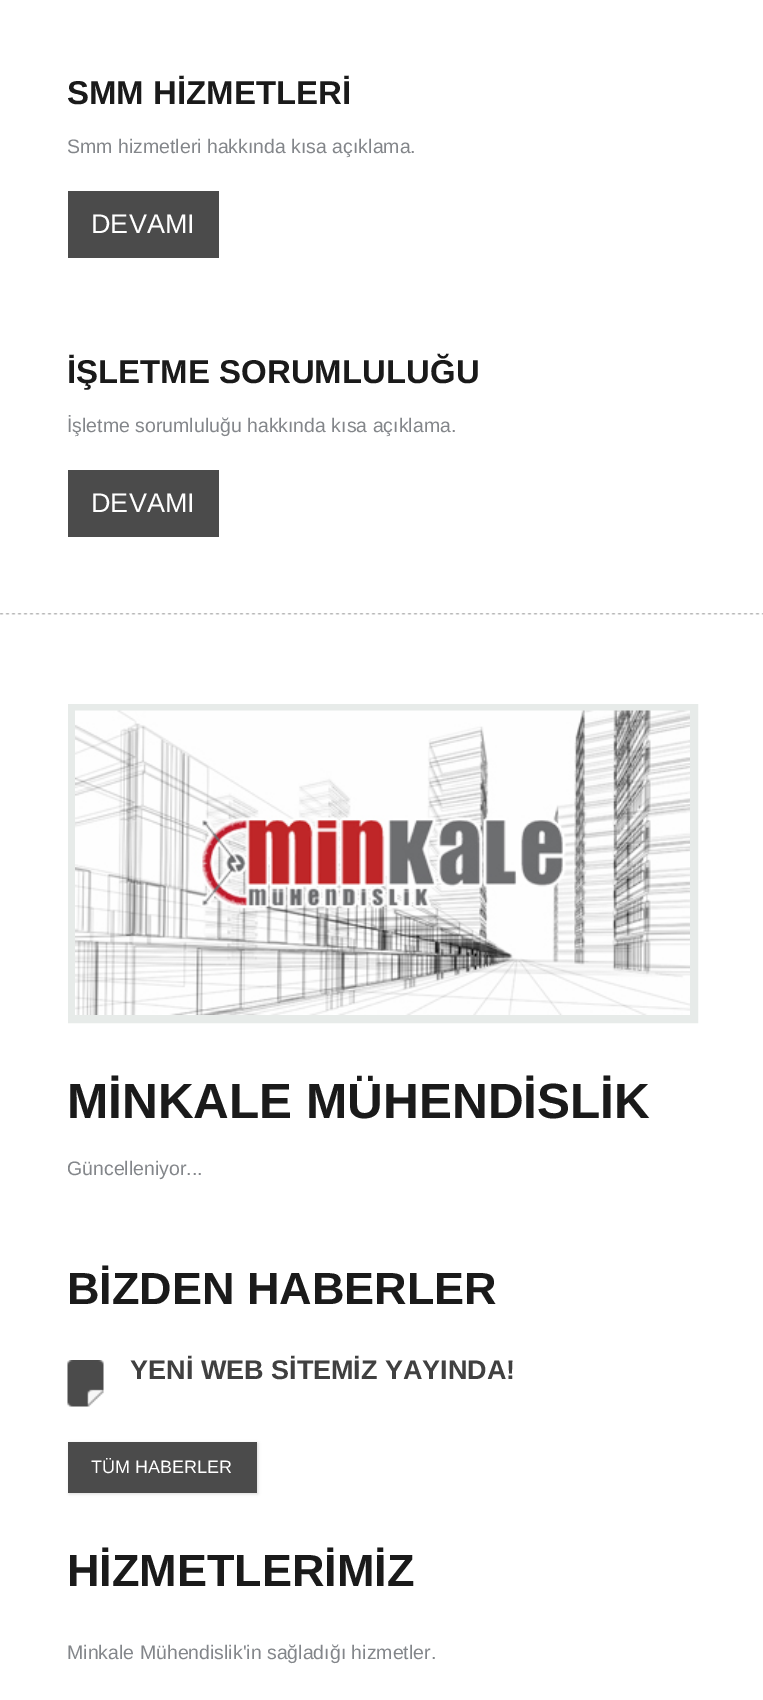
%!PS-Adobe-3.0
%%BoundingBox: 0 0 763 1700
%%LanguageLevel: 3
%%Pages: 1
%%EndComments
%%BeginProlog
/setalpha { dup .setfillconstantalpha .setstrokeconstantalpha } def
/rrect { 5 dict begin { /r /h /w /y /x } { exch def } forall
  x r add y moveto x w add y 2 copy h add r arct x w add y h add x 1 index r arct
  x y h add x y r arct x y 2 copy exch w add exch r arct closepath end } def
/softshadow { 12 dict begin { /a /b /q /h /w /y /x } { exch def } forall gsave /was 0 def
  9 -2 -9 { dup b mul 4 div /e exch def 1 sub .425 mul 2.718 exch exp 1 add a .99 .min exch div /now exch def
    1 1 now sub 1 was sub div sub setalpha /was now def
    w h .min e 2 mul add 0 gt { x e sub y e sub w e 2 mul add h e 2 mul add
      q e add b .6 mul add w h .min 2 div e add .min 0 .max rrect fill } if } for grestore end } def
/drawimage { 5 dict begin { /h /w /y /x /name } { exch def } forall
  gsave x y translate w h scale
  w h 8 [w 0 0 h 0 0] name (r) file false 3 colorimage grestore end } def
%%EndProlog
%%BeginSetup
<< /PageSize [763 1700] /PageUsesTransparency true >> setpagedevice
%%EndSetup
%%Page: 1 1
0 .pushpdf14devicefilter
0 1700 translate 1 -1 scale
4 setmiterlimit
1 setgray
0 0 763 1700 rectfill
(images/1.raw) 0 613 763 2 drawimage
0.294 setgray
68 191 151 67 rectfill
68 470 151 67 rectfill
0.906 0.922 0.914 setrgbcolor
8 setlinewidth
72 708 622 311 rectstroke
(images/2.raw) 75 710 615 305 drawimage
(images/3.raw) 67 1360 37 47 drawimage
0 setgray
69 1443 189 51 0 1.5 0.14 softshadow
0.294 setgray
68 1442 189 51 rectfill
/LiberationSans-Bold [33 0 0 -33 0 0] selectfont
0.102 setgray
67 104 moveto (SMM HİZMETLERİ) show
/LiberationSans-Regular [19.5 0 0 -19.5 0 0] selectfont
0.514 0.525 0.541 setrgbcolor
67 153 moveto (Smm hizmetleri hakkında kısa açıklama.) show
/LiberationSans-Regular [27 0 0 -27 0 0] selectfont
1 setgray
91 233 moveto (DEVAMI) show
/LiberationSans-Bold [33 0 0 -33 0 0] selectfont
0.102 setgray
67 383 moveto (İŞLETME SORUMLULUĞU) show
/LiberationSans-Regular [19.5 0 0 -19.5 0 0] selectfont
0.514 0.525 0.541 setrgbcolor
67 432 moveto (İşletme sorumluluğu hakkında kısa açıklama.) show
/LiberationSans-Regular [27 0 0 -27 0 0] selectfont
1 setgray
91 512 moveto (DEVAMI) show
/LiberationSans-Bold [49.5 0 0 -49.5 0 0] selectfont
0.102 setgray
67 1118 moveto (MİNKALE MÜHENDİSLİK) show
gsave
68 704 630 510 rectclip
/LiberationSans-Regular [19.5 0 0 -19.5 0 0] selectfont
0.514 0.525 0.541 setrgbcolor
67 1175 moveto (Güncelleniyor...) show
grestore
/LiberationSans-Bold [45 0 0 -45 0 0] selectfont
67 1304 moveto (BİZDEN HABERLER) show
/LiberationSans-Bold [27 0 0 -27 0 0] selectfont
0.251 setgray
130 1379 moveto (YENİ WEB SİTEMİZ YAYINDA!) show
/LiberationSans-Regular [18 0 0 -18 0 0] selectfont
1 setgray
91 1473 moveto (TÜM HABERLER) show
/LiberationSans-Bold [45 0 0 -45 0 0] selectfont
0.102 setgray
67 1586 moveto (HİZMETLERİMİZ) show
/LiberationSans-Regular [19.5 0 0 -19.5 0 0] selectfont
0.514 0.525 0.541 setrgbcolor
67 1659 moveto (Minkale Mühendislik'in sağladığı hizmetler.) show
.poppdf14devicefilter showpage
%%EOF
